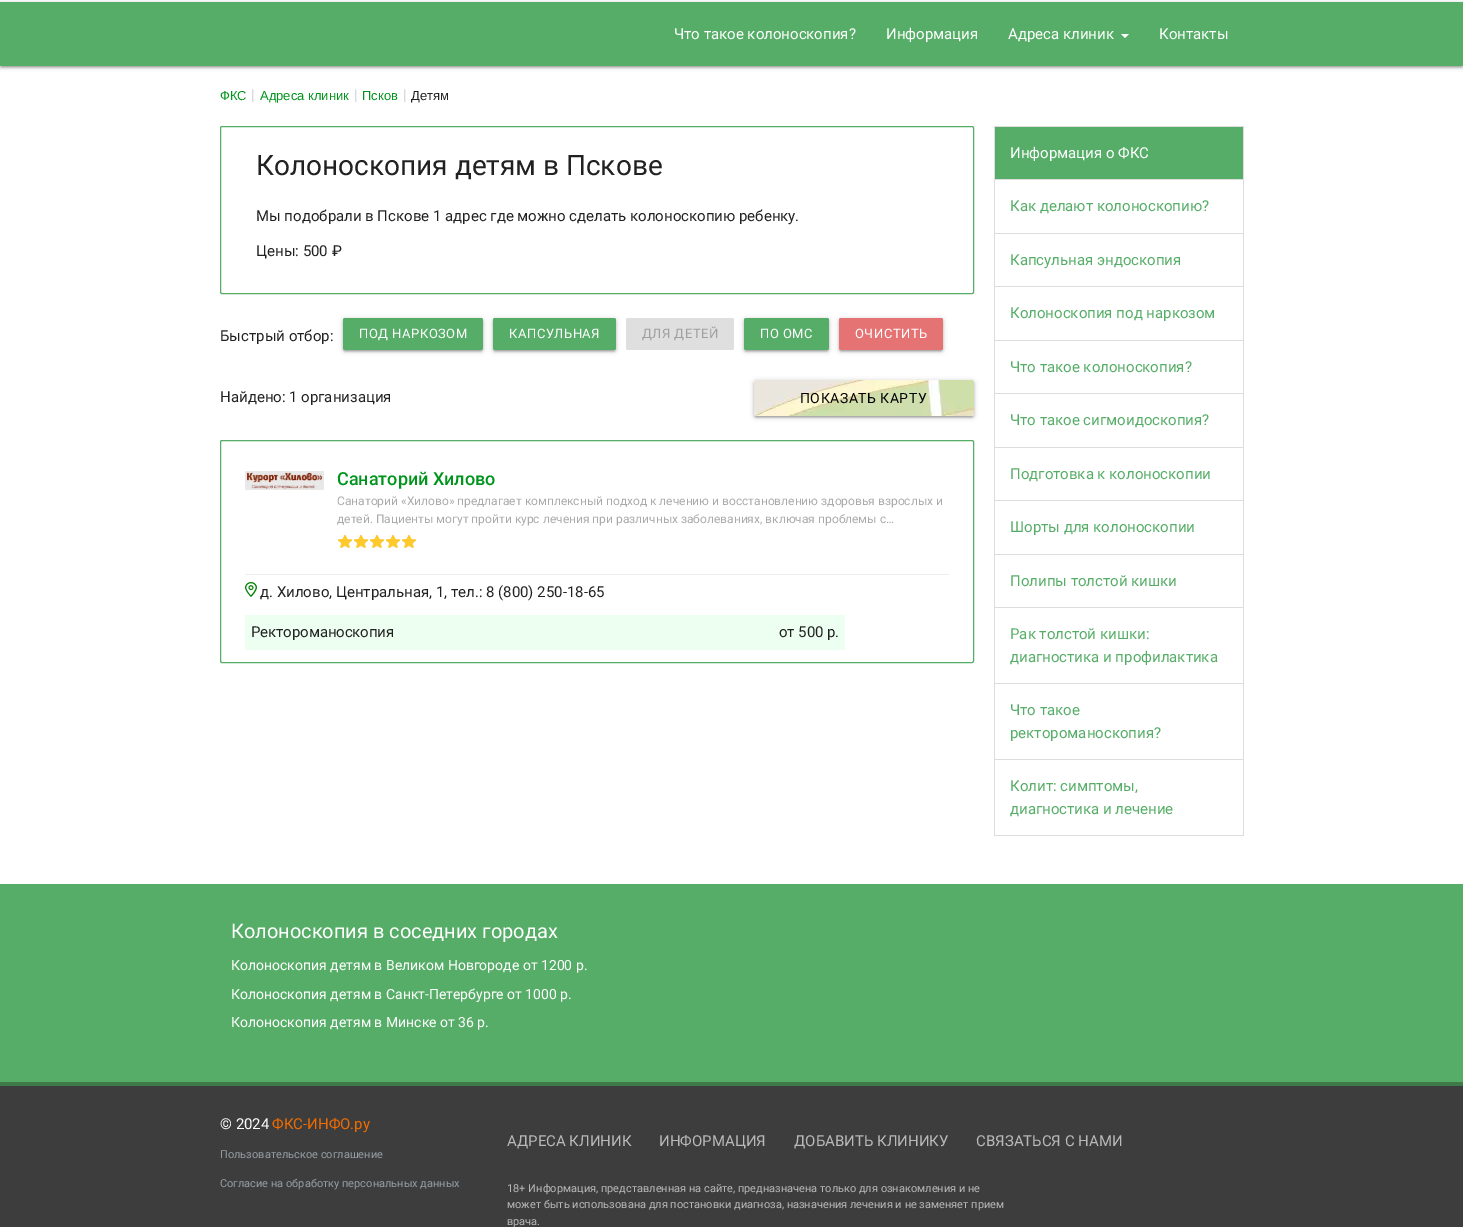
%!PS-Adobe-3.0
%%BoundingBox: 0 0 1463 1227
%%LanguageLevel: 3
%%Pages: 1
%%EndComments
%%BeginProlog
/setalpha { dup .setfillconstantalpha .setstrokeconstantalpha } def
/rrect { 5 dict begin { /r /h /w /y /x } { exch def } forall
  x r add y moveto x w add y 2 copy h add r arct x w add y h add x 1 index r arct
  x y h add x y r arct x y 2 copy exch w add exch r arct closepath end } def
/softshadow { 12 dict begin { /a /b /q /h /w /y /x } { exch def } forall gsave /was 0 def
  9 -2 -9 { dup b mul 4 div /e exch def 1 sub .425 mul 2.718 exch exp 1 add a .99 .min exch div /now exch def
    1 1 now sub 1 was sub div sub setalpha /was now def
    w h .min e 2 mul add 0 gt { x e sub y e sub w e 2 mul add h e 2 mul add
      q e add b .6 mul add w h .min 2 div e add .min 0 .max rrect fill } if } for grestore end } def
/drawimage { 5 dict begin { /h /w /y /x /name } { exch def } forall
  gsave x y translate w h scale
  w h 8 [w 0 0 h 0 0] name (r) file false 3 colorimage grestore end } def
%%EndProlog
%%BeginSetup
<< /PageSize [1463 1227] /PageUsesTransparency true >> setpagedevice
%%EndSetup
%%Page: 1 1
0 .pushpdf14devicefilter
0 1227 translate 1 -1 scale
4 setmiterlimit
1 setgray
0 0 1463 1227 rectfill
0 setgray
0 3 1463 64 0 2.5 0.2 softshadow
2 7 1459 60 0 0.5 0.12 softshadow
0 4 1463 64 0 1 0.14 softshadow
0.337 0.678 0.404 setrgbcolor
0 2 1463 64 rectfill
1 setgray
newpath 1121 34 moveto 1129 34 lineto 1125 38 lineto closepath fill
0.337 0.678 0.404 setrgbcolor
220.5 126.5 753 167 1.5 rrect stroke
0 setgray
343 319 140 32 2 2.5 0.2 softshadow
345 323 136 28 0 0.5 0.12 softshadow
343 320 140 32 2 1 0.14 softshadow
0.337 0.678 0.404 setrgbcolor
343 318 140 32 2 rrect fill
0 setgray
493 319 123 32 2 2.5 0.2 softshadow
495 323 119 28 0 0.5 0.12 softshadow
493 320 123 32 2 1 0.14 softshadow
0.337 0.678 0.404 setrgbcolor
493 318 123 32 2 rrect fill
0.875 setgray
626 318 108 32 2 rrect fill
0 setgray
744 319 85 32 2 2.5 0.2 softshadow
746 323 81 28 0 0.5 0.12 softshadow
744 320 85 32 2 1 0.14 softshadow
0.337 0.678 0.404 setrgbcolor
744 318 85 32 2 rrect fill
0 setgray
839 319 104 32 2 2.5 0.2 softshadow
841 323 100 28 0 0.5 0.12 softshadow
839 320 104 32 2 1 0.14 softshadow
0.898 0.451 0.451 setrgbcolor
839 318 104 32 2 rrect fill
0 setgray
754 381 220 36 2 2.5 0.2 softshadow
756 385 216 32 0 0.5 0.12 softshadow
754 382 220 36 2 1 0.14 softshadow
(images/1.raw) 754 380 220 36 drawimage
0.337 0.678 0.404 setrgbcolor
220.5 440.5 753 222 1.5 rrect stroke
(images/2.raw) 245 471 79 19 drawimage
(images/3.raw) 338 535 78 13 drawimage
(images/4.raw) 338 535 78 13 drawimage
0.933 setgray
245 574 704 1 rectfill
(images/5.raw) 245 582 12 15 drawimage
0.925 1 0.941 setrgbcolor
245 615 600 35 rectfill
0.867 setgray
994 126 250 1 rectfill
1243 126 1 710 rectfill
994 126 1 710 rectfill
0.337 0.678 0.404 setrgbcolor
995 127 248 52 rectfill
0.867 setgray
995 179 248 1 rectfill
995 233 248 1 rectfill
995 286 248 1 rectfill
995 340 248 1 rectfill
995 393 248 1 rectfill
995 447 248 1 rectfill
995 500 248 1 rectfill
995 554 248 1 rectfill
995 607 248 1 rectfill
995 683 248 1 rectfill
995 759 248 1 rectfill
995 835 248 1 rectfill
0.337 0.678 0.404 setrgbcolor
0 884 1463 198 rectfill
0.239 setgray
0 1086 1463 141 rectfill
0.243 0.475 0.29 setrgbcolor
0 1082 1463 4 rectfill
/Roboto-Regular [15 0 0 -15 0 0] selectfont
1 setgray
674 39 moveto (Что такое колоноскопия?) show
886 39 moveto (Информация) show
1008 39 moveto (Адреса клиник) show
1159 39 moveto (Контакты) show
/LiberationSans-Regular [13 0 0 -13 0 0] selectfont
0 0.58 0.114 setrgbcolor
220 100 moveto (ФКС) show
/Roboto-Regular [15 0 0 -15 0 0] selectfont
0.8 setgray
251 100 moveto (|) show
/LiberationSans-Regular [13 0 0 -13 0 0] selectfont
0 0.58 0.114 setrgbcolor
260 100 moveto (Адреса клиник) show
/Roboto-Regular [15 0 0 -15 0 0] selectfont
0.8 setgray
354 100 moveto (|) show
/LiberationSans-Regular [13 0 0 -13 0 0] selectfont
0 0.58 0.114 setrgbcolor
362 100 moveto (Псков) show
/Roboto-Regular [15 0 0 -15 0 0] selectfont
0.8 setgray
403 100 moveto (|) show
/LiberationSans-Regular [13 0 0 -13 0 0] selectfont
0.129 setgray
411 100 moveto (Детям) show
/Roboto-Regular [28 0 0 -28 0 0] selectfont
256 175 moveto (Колоноскопия детям в Пскове) show
/Roboto-Regular [15 0 0 -15 0 0] selectfont
256 221 moveto (Мы подобрали в Пскове 1 адрес где можно сделать колоноскопию ребенку.) show
256 256 moveto (Цены: 500 ₽) show
220 341 moveto (Быстрый отбор:) show
/Roboto-Regular [13 0 0 -13 0 0] selectfont
1 setgray
359 338 moveto 0.5 0 (ПОД НАРКОЗОМ) ashow
509 338 moveto 0.5 0 (КАПСУЛЬНАЯ) ashow
0.624 setgray
642 338 moveto 0.5 0 (ДЛЯ ДЕТЕЙ) ashow
1 setgray
760 338 moveto 0.5 0 (ПО ОМС) ashow
855 338 moveto 0.5 0 (ОЧИСТИТЬ) ashow
/Roboto-Regular [15 0 0 -15 0 0] selectfont
0.129 setgray
220 402 moveto (Найдено: 1 организация) show
/Roboto-Regular [14 0 0 -14 0 0] selectfont
0 setgray
800 403 moveto 0.5 0 (ПОКАЗАТЬ КАРТУ) ashow
/Roboto-Medium [18 0 0 -18 0 0] selectfont
0 0.58 0.114 setrgbcolor
337 485 moveto (Санаторий Хилово) show
/Roboto-Regular [12 0 0 -12 0 0] selectfont
0.667 setgray
337 505 moveto (Санаторий «Хилово» предлагает комплексный подход к лечению и восстановлению здоровья взрослых и) show
337 523 moveto (детей. Пациенты могут пройти курс лечения при различных заболеваниях, включая проблемы с…) show
/Roboto-Regular [15 0 0 -15 0 0] selectfont
0.129 setgray
260 597 moveto (д. Хилово, Центральная, 1, тел.: 8 \(800\) 250-18-65) show
251 637 moveto -0.1 0 (Ректороманоскопия) ashow
779 637 moveto -0.1 0 (от 500 р.) ashow
1 setgray
1010 158 moveto (Информация о ФКС) show
0.337 0.678 0.404 setrgbcolor
1010 211 moveto (Как делают колоноскопию?) show
1010 265 moveto (Капсульная эндоскопия) show
1010 318 moveto (Колоноскопия под наркозом) show
1010 372 moveto (Что такое колоноскопия?) show
1010 425 moveto (Что такое сигмоидоскопия?) show
1010 479 moveto (Подготовка к колоноскопии) show
1010 532 moveto (Шорты для колоноскопии) show
1010 586 moveto (Полипы толстой кишки) show
1010 639 moveto (Рак толстой кишки:) show
1010 662 moveto (диагностика и профилактика) show
1010 715 moveto (Что такое) show
1010 738 moveto (ректороманоскопия?) show
1010 791 moveto (Колит: симптомы,) show
1010 814 moveto (диагностика и лечение) show
/Roboto-Regular [20 0 0 -20 0 0] selectfont
1 setgray
231 938 moveto (Колоноскопия в соседних городах) show
/Roboto-Regular [14 0 0 -14 0 0] selectfont
231 970 moveto (Колоноскопия детям в Великом Новгороде от 1200 р.) show
231 999 moveto (Колоноскопия детям в Санкт-Петербурге от 1000 р.) show
231 1027 moveto (Колоноскопия детям в Минске от 36 р.) show
/Roboto-Regular [15 0 0 -15 0 0] selectfont
220 1129 moveto (© 2024) show
0.937 0.424 0 setrgbcolor
272 1129 moveto (ФКС-ИНФО.ру) show
/Roboto-Regular [11 0 0 -11 0 0] selectfont
0.588 0.62 0.643 setrgbcolor
220 1158 moveto (Пользовательское соглашение) show
220 1187 moveto (Согласие на обработку персональных данных) show
/Roboto-Regular [15 0 0 -15 0 0] selectfont
0.725 setgray
507 1146 moveto (АДРЕСА КЛИНИК) show
659 1146 moveto (ИНФОРМАЦИЯ) show
794 1146 moveto (ДОБАВИТЬ КЛИНИКУ) show
976 1146 moveto (СВЯЗАТЬСЯ С НАМИ) show
/Roboto-Regular [11 0 0 -11 0 0] selectfont
507 1192 moveto (18+ Информация, представленная на сайте, предназначена только для ознакомления и не) show
507 1208 moveto (может быть использована для постановки диагноза, назначения лечения и не заменяет прием) show
507 1225 moveto (врача.) show
.poppdf14devicefilter showpage
%%EOF
